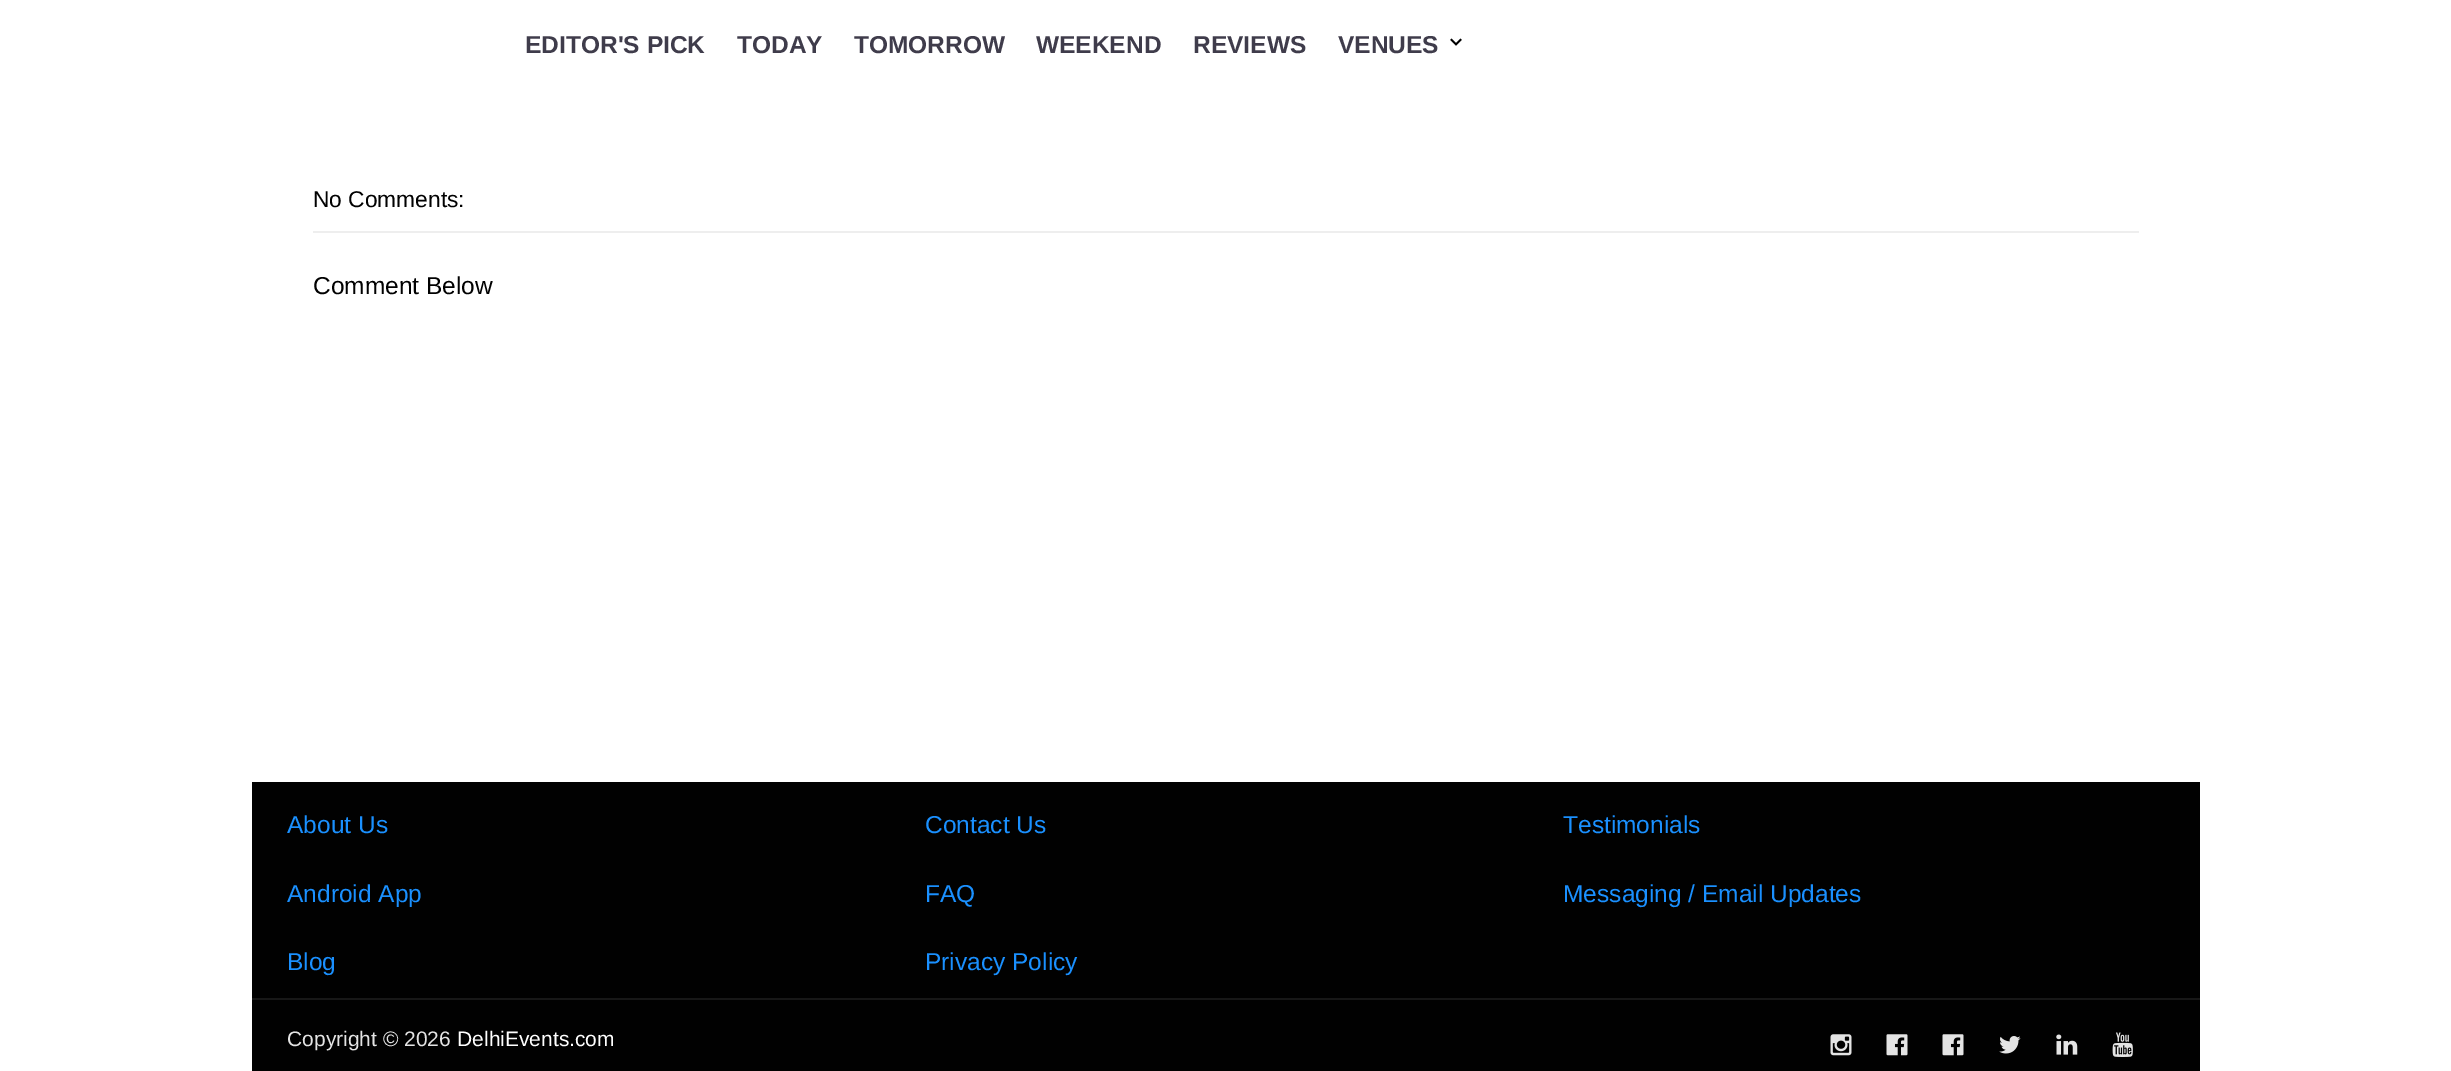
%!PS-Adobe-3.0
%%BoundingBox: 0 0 2451 1071
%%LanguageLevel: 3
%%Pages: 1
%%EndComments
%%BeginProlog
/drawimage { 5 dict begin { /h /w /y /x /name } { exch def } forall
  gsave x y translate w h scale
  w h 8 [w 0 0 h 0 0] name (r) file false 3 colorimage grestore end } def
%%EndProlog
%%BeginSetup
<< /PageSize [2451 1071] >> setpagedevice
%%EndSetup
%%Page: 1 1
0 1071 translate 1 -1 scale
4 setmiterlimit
1 setgray
0 0 2451 1071 rectfill
(images/1.raw) 1450 38 12 8 drawimage
0.933 setgray
313 231 1826 2 rectfill
0.004 setgray
252 782 1948 289 rectfill
0.09 setgray
252 998 1948 2 rectfill
(images/2.raw) 1830 1034 22 22 drawimage
(images/3.raw) 1886 1034 22 22 drawimage
(images/3.raw) 1942 1034 22 22 drawimage
(images/4.raw) 1999 1036 22 18 drawimage
(images/5.raw) 2056 1034 22 21 drawimage
(images/6.raw) 2112 1032 21 25 drawimage
/LiberationSans-Bold [24.5 0 0 -24.5 0 0] selectfont
0.247 0.235 0.294 setrgbcolor
525 53 moveto (EDITOR'S PICK) show
737 53 moveto (TODAY) show
854 53 moveto (TOMORROW) show
1036 53 moveto (WEEKEND) show
1193 53 moveto (REVIEWS) show
1338 53 moveto (VENUES) show
/LiberationSans-Regular [22.75 0 0 -22.75 0 0] selectfont
0.004 setgray
313 207 moveto (No Comments:) show
/LiberationSans-Regular [24.5 0 0 -24.5 0 0] selectfont
313 294 moveto (Comment Below) show
0.102 0.565 1 setrgbcolor
287 833 moveto (About Us) show
287 902 moveto (Android App) show
287 970 moveto (Blog) show
925 833 moveto (Contact Us) show
925 902 moveto (FAQ) show
925 970 moveto (Privacy Policy) show
1563 833 moveto (Testimonials) show
1563 902 moveto (Messaging / Email Updates) show
/LiberationSans-Regular [21 0 0 -21 0 0] selectfont
0.894 setgray
287 1046 moveto (Copyright © 2026) show
1 setgray
457 1046 moveto (DelhiEvents.com) show
showpage
%%EOF
